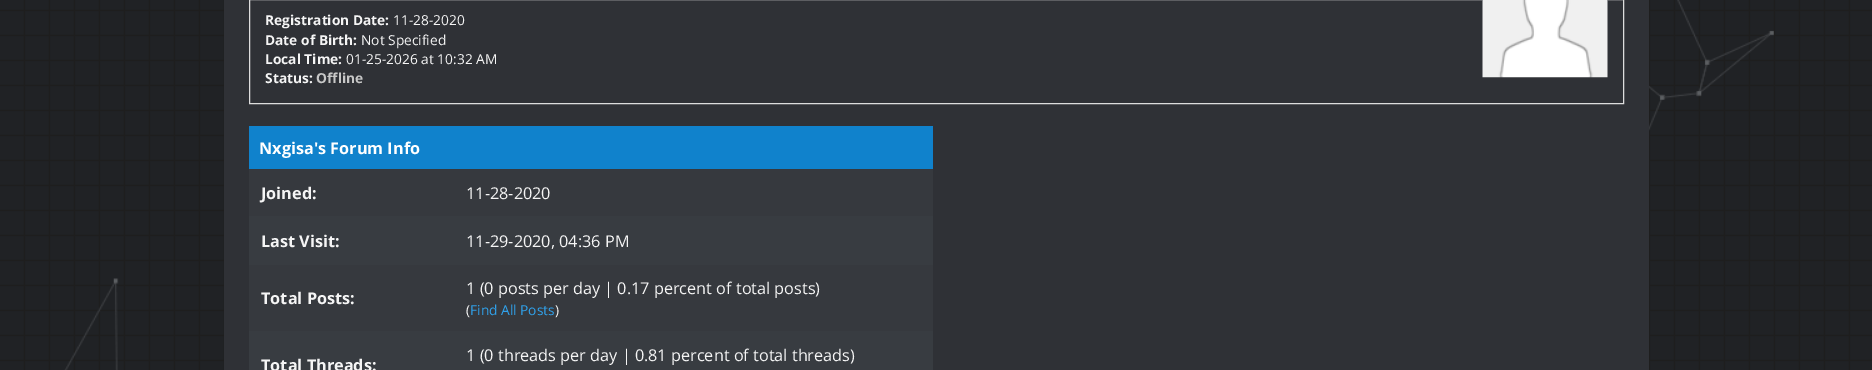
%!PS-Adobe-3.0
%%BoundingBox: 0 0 1872 370
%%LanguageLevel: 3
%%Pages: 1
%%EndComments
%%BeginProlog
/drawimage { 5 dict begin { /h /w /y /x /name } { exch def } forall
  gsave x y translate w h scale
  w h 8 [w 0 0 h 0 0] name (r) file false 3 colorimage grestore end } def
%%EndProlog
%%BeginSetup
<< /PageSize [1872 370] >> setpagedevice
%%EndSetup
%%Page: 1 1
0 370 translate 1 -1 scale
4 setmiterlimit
1 setgray
0 0 1872 370 rectfill
(images/1.raw) 0 0 1872 370 drawimage
0.184 0.192 0.212 setrgbcolor
224 0 1425 370 rectfill
0.867 setgray
249.5 -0.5 1374 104 rectstroke
(images/2.raw) 1482 0 126 78 drawimage
0.063 0.51 0.8 setrgbcolor
249 126 684 43 rectfill
0.212 0.224 0.243 setrgbcolor
249 169 684 47 rectfill
0.22 0.235 0.255 setrgbcolor
249 216 684 49 rectfill
0.212 0.224 0.243 setrgbcolor
249 265 684 66 rectfill
0.22 0.235 0.255 setrgbcolor
249 331 684 39 rectfill
/OpenSans-Bold [13.75 0 0 -13.75 0 0] selectfont
0.961 setgray
265 25 moveto (Registration Date:) show
/OpenSans-Regular [13.75 0 0 -13.75 0 0] selectfont
393 25 moveto (11-28-2020) show
/OpenSans-Bold [13.75 0 0 -13.75 0 0] selectfont
265 45 moveto (Date of Birth:) show
/OpenSans-Regular [13.75 0 0 -13.75 0 0] selectfont
361 45 moveto (Not Specified) show
/OpenSans-Bold [13.75 0 0 -13.75 0 0] selectfont
265 64 moveto (Local Time:) show
/OpenSans-Regular [13.75 0 0 -13.75 0 0] selectfont
346 64 moveto (01-25-2026 at 10:32 AM) show
/OpenSans-Bold [13.75 0 0 -13.75 0 0] selectfont
265 83 moveto (Status:) show
0.78 setgray
316 83 moveto (Offline) show
/OpenSans-Bold [16.25 0 0 -16.25 0 0] selectfont
1 setgray
259 154 moveto (Nxgisa's Forum Info) show
0.961 setgray
261 199 moveto (Joined:) show
/OpenSans-Regular [16.25 0 0 -16.25 0 0] selectfont
466 199 moveto (11-28-2020) show
/OpenSans-Bold [16.25 0 0 -16.25 0 0] selectfont
261 247 moveto (Last Visit:) show
/OpenSans-Regular [16.25 0 0 -16.25 0 0] selectfont
466 247 moveto (11-29-2020, 04:36 PM) show
/OpenSans-Bold [16.25 0 0 -16.25 0 0] selectfont
261 304 moveto (Total Posts:) show
/OpenSans-Regular [16.25 0 0 -16.25 0 0] selectfont
466 294 moveto (1 \(0 posts per day | 0.17 percent of total posts\)) show
/OpenSans-Regular [13.75 0 0 -13.75 0 0] selectfont
466 315 moveto (\() show
0.188 0.635 0.925 setrgbcolor
470 315 moveto (Find All Posts) show
0.961 setgray
555 315 moveto (\)) show
/OpenSans-Bold [16.25 0 0 -16.25 0 0] selectfont
261 371 moveto (Total Threads:) show
/OpenSans-Regular [16.25 0 0 -16.25 0 0] selectfont
466 361 moveto (1 \(0 threads per day | 0.81 percent of total threads\)) show
showpage
%%EOF
